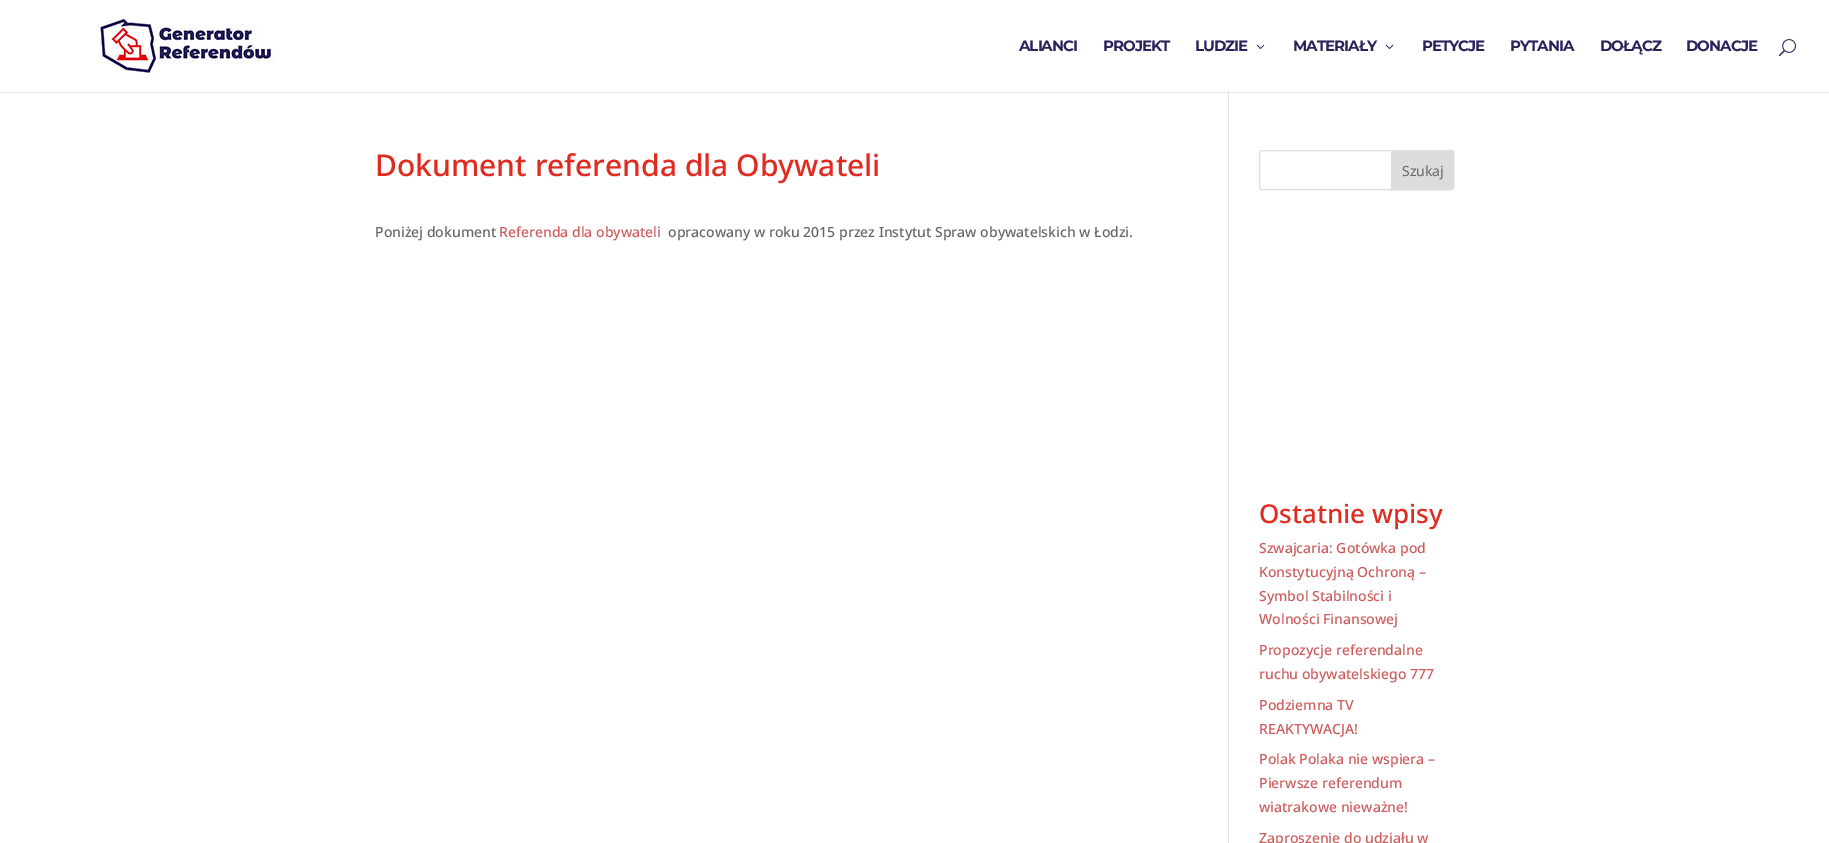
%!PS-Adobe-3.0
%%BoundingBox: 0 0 1829 843
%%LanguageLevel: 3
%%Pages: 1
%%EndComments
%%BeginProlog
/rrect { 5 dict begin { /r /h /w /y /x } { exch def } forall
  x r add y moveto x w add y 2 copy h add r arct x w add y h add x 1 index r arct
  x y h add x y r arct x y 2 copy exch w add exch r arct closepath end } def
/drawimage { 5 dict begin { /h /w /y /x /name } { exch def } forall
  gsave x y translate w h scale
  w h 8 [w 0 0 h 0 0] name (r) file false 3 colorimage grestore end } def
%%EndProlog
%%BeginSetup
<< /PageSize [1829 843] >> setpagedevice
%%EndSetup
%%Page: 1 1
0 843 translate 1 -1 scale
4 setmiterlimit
1 setgray
0 0 1829 843 rectfill
0.902 setgray
0 92 1829 1 rectfill
(images/1.raw) 98 16 176 60 drawimage
(images/2.raw) 1256 44 9 5 drawimage
(images/2.raw) 1385 44 9 5 drawimage
(images/3.raw) 1779 39 17 18 drawimage
0.886 setgray
1228 92 1 751 rectfill
0.796 setgray
1228 92 1 1 rectfill
0.867 setgray
1259.5 150.5 194 39 2.5 rrect stroke
newpath 1391.5 150.5 moveto 1451 150.5 lineto 1452.5 150.5 1453.5 151.5 1453.5 153 curveto 1453.5 187 lineto 1453.5 188.5 1452.5 189.5 1451 189.5 curveto 1391.5 189.5 lineto closepath gsave fill grestore
stroke
/Montserrat-Thin [15 0 0 -15 0 0] selectfont
0.157 0.137 0.357 setrgbcolor
1019 51 moveto -1 0 (ALIANCI) ashow
1103 51 moveto -1 0 (PROJEKT) ashow
1195 51 moveto -1 0 (LUDZIE) ashow
1293 51 moveto -1 0 (MATERIAŁY) ashow
1422 51 moveto -1 0 (PETYCJE) ashow
1510 51 moveto -1 0 (PYTANIA) ashow
1600 51 moveto -1 0 (DOŁĄCZ) ashow
1686 51 moveto -1 0 (DONACJE) ashow
/NotoSans-Medium [30 0 0 -30 0 0] selectfont
0.878 0.169 0.125 setrgbcolor
375 176 moveto (Dokument referenda dla Obywateli) show
/NotoSans-Medium [14 0 0 -14 0 0] selectfont
0.4 setgray
375 237 moveto (Poniżej dokument) show
0.804 0.361 0.361 setrgbcolor
499 237 moveto (Referenda dla obywateli) show
0.4 setgray
668 237 moveto (opracowany w roku 2015 przez Instytut Spraw obywatelskich w Łodzi.) show
/NotoSans-Regular [14 0 0 -14 0 0] selectfont
1402 176 moveto (Szukaj) show
/NotoSans-Medium [26 0 0 -26 0 0] selectfont
0.878 0.169 0.125 setrgbcolor
1259 523 moveto (Ostatnie wpisy) show
/NotoSans-Medium [14 0 0 -14 0 0] selectfont
0.804 0.361 0.361 setrgbcolor
1259 553 moveto (Szwajcaria: Gotówka pod) show
1259 577 moveto (Konstytucyjną Ochroną –) show
1259 601 moveto (Symbol Stabilności i) show
1259 624 moveto (Wolności Finansowej) show
1259 655 moveto (Propozycje referendalne) show
1259 679 moveto (ruchu obywatelskiego 777) show
1259 710 moveto (Podziemna TV) show
1259 734 moveto (REAKTYWACJA!) show
1259 764 moveto (Polak Polaka nie wspiera –) show
1259 788 moveto (Pierwsze referendum) show
1259 812 moveto (wiatrakowe nieważne!) show
1259 843 moveto (Zaproszenie do udziału w) show
showpage
%%EOF
